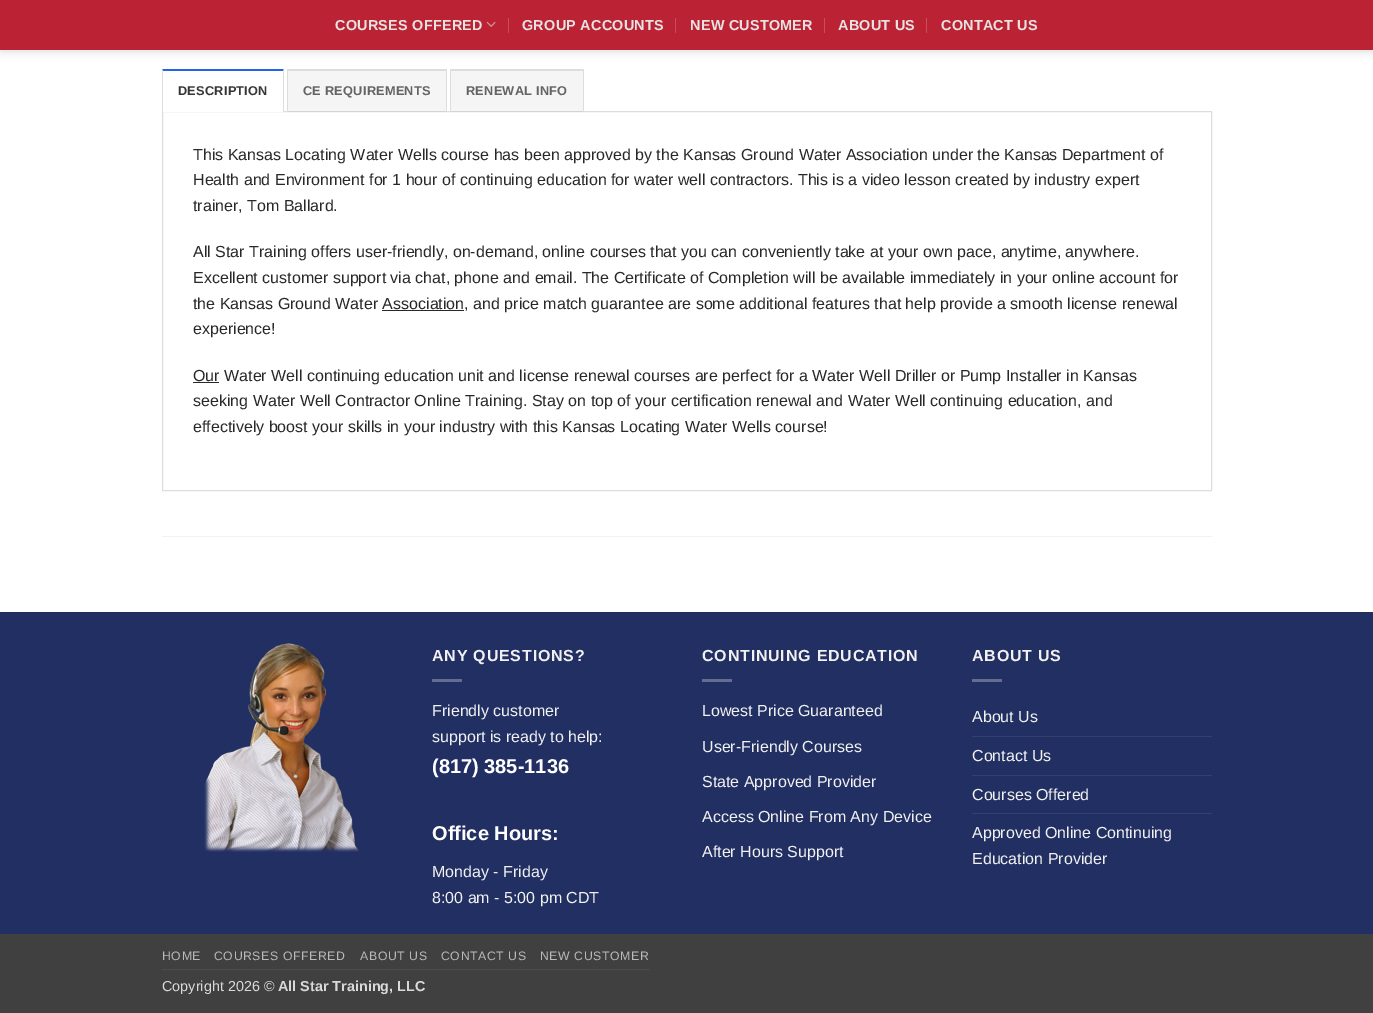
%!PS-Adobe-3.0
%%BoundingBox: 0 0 1373 1013
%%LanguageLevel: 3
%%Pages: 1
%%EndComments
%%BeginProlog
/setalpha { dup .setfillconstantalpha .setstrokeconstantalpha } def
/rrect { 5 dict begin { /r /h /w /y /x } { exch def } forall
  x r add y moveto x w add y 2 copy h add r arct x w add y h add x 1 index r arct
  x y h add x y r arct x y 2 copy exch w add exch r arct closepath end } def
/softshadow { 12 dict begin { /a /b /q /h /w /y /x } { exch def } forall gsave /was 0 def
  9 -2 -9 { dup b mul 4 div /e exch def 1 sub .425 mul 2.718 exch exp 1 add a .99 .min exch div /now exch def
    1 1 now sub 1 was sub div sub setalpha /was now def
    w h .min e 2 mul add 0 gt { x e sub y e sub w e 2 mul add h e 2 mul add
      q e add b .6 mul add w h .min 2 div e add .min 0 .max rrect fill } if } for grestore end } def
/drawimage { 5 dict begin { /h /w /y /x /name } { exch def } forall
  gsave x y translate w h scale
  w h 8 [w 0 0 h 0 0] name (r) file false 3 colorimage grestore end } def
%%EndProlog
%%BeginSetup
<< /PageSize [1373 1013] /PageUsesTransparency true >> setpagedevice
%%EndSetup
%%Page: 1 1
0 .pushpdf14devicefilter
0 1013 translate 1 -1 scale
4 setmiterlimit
1 setgray
0 0 1373 1013 rectfill
0 setgray
1 1 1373 50 0 5 0.15 softshadow
0.733 0.133 0.2 setrgbcolor
0 0 1373 50 rectfill
(images/1.raw) 486 21 10 6 drawimage
0.788 0.306 0.361 setrgbcolor
508 18 1 15 rectfill
675 18 1 15 rectfill
824 18 1 15 rectfill
926 18 1 15 rectfill
0.867 setgray
162.5 111.5 1049 379 rectstroke
1 setgray
162 111 122 1 rectfill
0.145 0.388 0.922 setrgbcolor
newpath 162 69 moveto 284 69 lineto 283 71 lineto 163 71 lineto closepath fill
0.867 setgray
newpath 284 69 moveto 284 112 lineto 283 112 lineto 283 71 lineto closepath fill
newpath 162 112 moveto 162 69 lineto 163 71 lineto 163 112 lineto closepath fill
0.04 setalpha
0 setgray
288 71 158 41 rectfill
1 setalpha
0.867 setgray
287 69 160 2 rectfill
446 69 1 43 rectfill
287 69 1 43 rectfill
0.04 setalpha
0 setgray
451 71 132 41 rectfill
1 setalpha
0.867 setgray
450 69 134 2 rectfill
583 69 1 43 rectfill
450 69 1 43 rectfill
0.157 setgray
382 310 82 1 rectfill
193 382 26 1 rectfill
0.949 setgray
162 536 1050 1 rectfill
0.133 0.184 0.384 setrgbcolor
0 613 1373 321 rectfill
0.125 0.176 0.365 setrgbcolor
0 612 1373 1 rectfill
(images/2.raw) 204 643 155 209 drawimage
0.392 0.427 0.569 setrgbcolor
432 679 30 3 rectfill
702 679 30 3 rectfill
972 679 30 3 rectfill
0.204 0.251 0.435 setrgbcolor
972 736 240 1 rectfill
972 775 240 1 rectfill
972 813 240 1 rectfill
0.251 setgray
0 934 1373 79 rectfill
0.298 setgray
162 969 488 1 rectfill
/LiberationSans-Bold [14.4 0 0 -14.4 0 0] selectfont
0.906 0.89 0.89 setrgbcolor
335 30 moveto 0.25 0 (COURSES OFFERED) ashow
522 30 moveto 0.25 0 (GROUP ACCOUNTS) ashow
690 30 moveto 0.25 0 (NEW CUSTOMER) ashow
838 30 moveto 0.25 0 (ABOUT US) ashow
941 30 moveto 0.25 0 (CONTACT US) ashow
/LiberationSans-Bold [12.75 0 0 -12.75 0 0] selectfont
0.212 setgray
178 95 moveto 0.25 0 (DESCRIPTION) ashow
0.392 setgray
303 95 moveto 0.25 0 (CE REQUIREMENTS) ashow
466 95 moveto 0.25 0 (RENEWAL INFO) ashow
/LiberationSans-Regular [16 0 0 -16 0 0] selectfont
0.157 setgray
193 160 moveto (This Kansas Locating Water Wells course has been approved by the Kansas Ground Water Association under the Kansas Department of) show
193 185 moveto (Health and Environment for 1 hour of continuing education for water well contractors. This is a video lesson created by industry expert) show
193 211 moveto (trainer, Tom Ballard.) show
193 257 moveto (All Star Training offers user-friendly, on-demand, online courses that you can conveniently take at your own pace, anytime, anywhere.) show
193 283 moveto (Excellent customer support via chat, phone and email. The Certificate of Completion will be available immediately in your online account for) show
193 309 moveto (the Kansas Ground Water Association, and price match guarantee are some additional features that help provide a smooth license renewal) show
193 334 moveto (experience!) show
193 381 moveto (Our Water Well continuing education unit and license renewal courses are perfect for a Water Well Driller or Pump Installer in Kansas) show
193 406 moveto (seeking Water Well Contractor Online Training. Stay on top of your certification renewal and Water Well continuing education, and) show
193 432 moveto (effectively boost your skills in your industry with this Kansas Locating Water Wells course!) show
/LiberationSans-Bold [16 0 0 -16 0 0] selectfont
0.945 setgray
432 661 moveto 0.8 0 (ANY QUESTIONS?) ashow
/LiberationSans-Regular [16 0 0 -16 0 0] selectfont
432 716 moveto (Friendly customer) show
432 742 moveto (support is ready to help:) show
/LiberationSans-Bold [20 0 0 -20 0 0] selectfont
1 setgray
432 773 moveto (\(817\) 385-1136) show
432 840 moveto (Office Hours:) show
/LiberationSans-Regular [16 0 0 -16 0 0] selectfont
0.945 setgray
432 877 moveto (Monday - Friday) show
432 903 moveto (8:00 am - 5:00 pm CDT) show
/LiberationSans-Bold [16 0 0 -16 0 0] selectfont
702 661 moveto 0.8 0 (CONTINUING EDUCATION) ashow
/LiberationSans-Regular [16 0 0 -16 0 0] selectfont
702 716 moveto (Lowest Price Guaranteed) show
702 752 moveto (User-Friendly Courses) show
702 787 moveto (State Approved Provider) show
702 822 moveto (Access Online From Any Device) show
702 857 moveto (After Hours Support) show
/LiberationSans-Bold [16 0 0 -16 0 0] selectfont
972 661 moveto 0.8 0 (ABOUT US) ashow
/LiberationSans-Regular [16 0 0 -16 0 0] selectfont
972 722 moveto (About Us) show
972 761 moveto (Contact Us) show
972 800 moveto (Courses Offered) show
972 838 moveto (Approved Online Continuing) show
972 864 moveto (Education Provider) show
/LiberationSans-Regular [12.25 0 0 -12.25 0 0] selectfont
0.729 setgray
162 960 moveto 0.6 0 (HOME) ashow
214 960 moveto 0.6 0 (COURSES OFFERED) ashow
360 960 moveto 0.6 0 (ABOUT US) ashow
441 960 moveto 0.6 0 (CONTACT US) ashow
540 960 moveto 0.6 0 (NEW CUSTOMER) ashow
/LiberationSans-Regular [14.4 0 0 -14.4 0 0] selectfont
0.851 setgray
162 991 moveto (Copyright 2026 ©) show
/LiberationSans-Bold [14.4 0 0 -14.4 0 0] selectfont
278 991 moveto (All Star Training, LLC) show
.poppdf14devicefilter showpage
%%EOF
